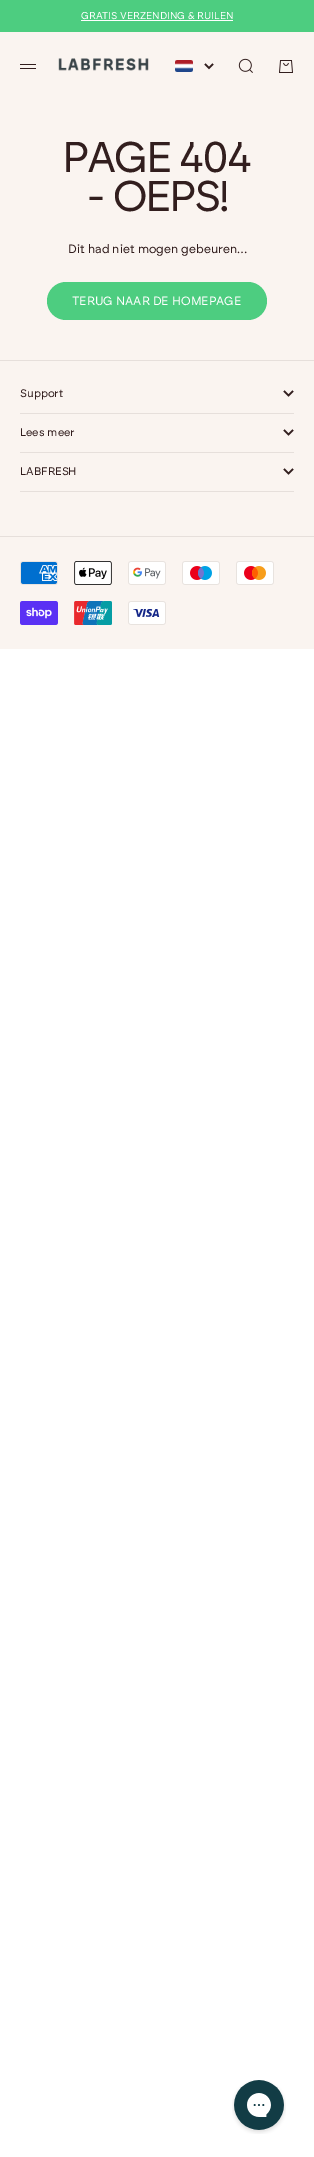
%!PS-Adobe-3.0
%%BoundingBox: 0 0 314 2157
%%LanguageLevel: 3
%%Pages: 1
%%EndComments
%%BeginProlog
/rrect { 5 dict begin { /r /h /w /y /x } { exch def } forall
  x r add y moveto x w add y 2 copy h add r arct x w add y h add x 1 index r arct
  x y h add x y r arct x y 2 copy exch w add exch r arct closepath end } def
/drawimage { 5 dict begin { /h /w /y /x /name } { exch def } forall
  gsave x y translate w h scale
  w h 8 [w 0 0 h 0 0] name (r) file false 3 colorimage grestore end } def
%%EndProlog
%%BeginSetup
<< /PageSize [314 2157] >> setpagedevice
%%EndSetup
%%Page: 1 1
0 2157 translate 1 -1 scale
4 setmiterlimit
1 setgray
0 0 314 2157 rectfill
0.302 0.804 0.502 setrgbcolor
0 0 314 32 rectfill
1 setgray
81 20 152 1 rectfill
0.98 0.957 0.941 setrgbcolor
0 32 314 328 rectfill
0.196 0.118 0.118 setrgbcolor
20 64 16 1 rectfill
20 68 16 1 rectfill
(images/1.raw) 58 58 91 13 drawimage
(images/2.raw) 175 60 18 12 drawimage
1.5 setlinewidth
newpath 205 64 moveto 209 68 lineto 213 64 lineto stroke
(images/3.raw) 238 58 15 15 drawimage
(images/4.raw) 279 60 14 13 drawimage
0.302 0.804 0.502 setrgbcolor
47 282 220 38 19 rrect fill
0.98 0.957 0.941 setrgbcolor
0 361 314 288 rectfill
0.902 0.875 0.859 setrgbcolor
0 360 314 1 rectfill
20 413 274 1 rectfill
0.196 0.118 0.118 setrgbcolor
newpath 293 391 moveto 288.5 395.5 lineto 284 391 lineto 293 430 moveto 288.5 434.5 lineto 284 430 lineto stroke
0.902 0.875 0.859 setrgbcolor
20 452 274 1 rectfill
20 491 274 1 rectfill
0.196 0.118 0.118 setrgbcolor
newpath 293 469 moveto 288.5 473.5 lineto 284 469 lineto stroke
0.902 0.875 0.859 setrgbcolor
0 536 314 1 rectfill
(images/5.raw) 20 561 38 24 drawimage
(images/6.raw) 74 561 38 24 drawimage
(images/7.raw) 128 561 38 24 drawimage
(images/8.raw) 182 561 38 24 drawimage
(images/9.raw) 236 561 38 24 drawimage
(images/10.raw) 20 601 38 24 drawimage
(images/11.raw) 74 601 38 24 drawimage
(images/12.raw) 128 601 38 24 drawimage
(images/13.raw) 232 2080 54 54 drawimage
/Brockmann-Regular [10 0 0 -10 0 0] selectfont
1 setgray
81 19 moveto (GRATIS VERZENDING & RUILEN) show
/Brockmann-Regular [43 0 0 -43 0 0] selectfont
0.196 0.118 0.118 setrgbcolor
62 172 moveto -2.25 0 (PAGE 404) ashow
86 211 moveto -2.25 0 (- OEPS!) ashow
/Brockmann-Regular [12 0 0 -12 0 0] selectfont
68 253 moveto (Dit had niet mogen gebeuren…) show
1 setgray
72 305 moveto (TERUG NAAR DE HOMEPAGE) show
/Brockmann-Regular [11 0 0 -11 0 0] selectfont
0.196 0.118 0.118 setrgbcolor
20 397 moveto (Support) show
20 436 moveto (Lees meer) show
20 475 moveto (LABFRESH) show
showpage
%%EOF
